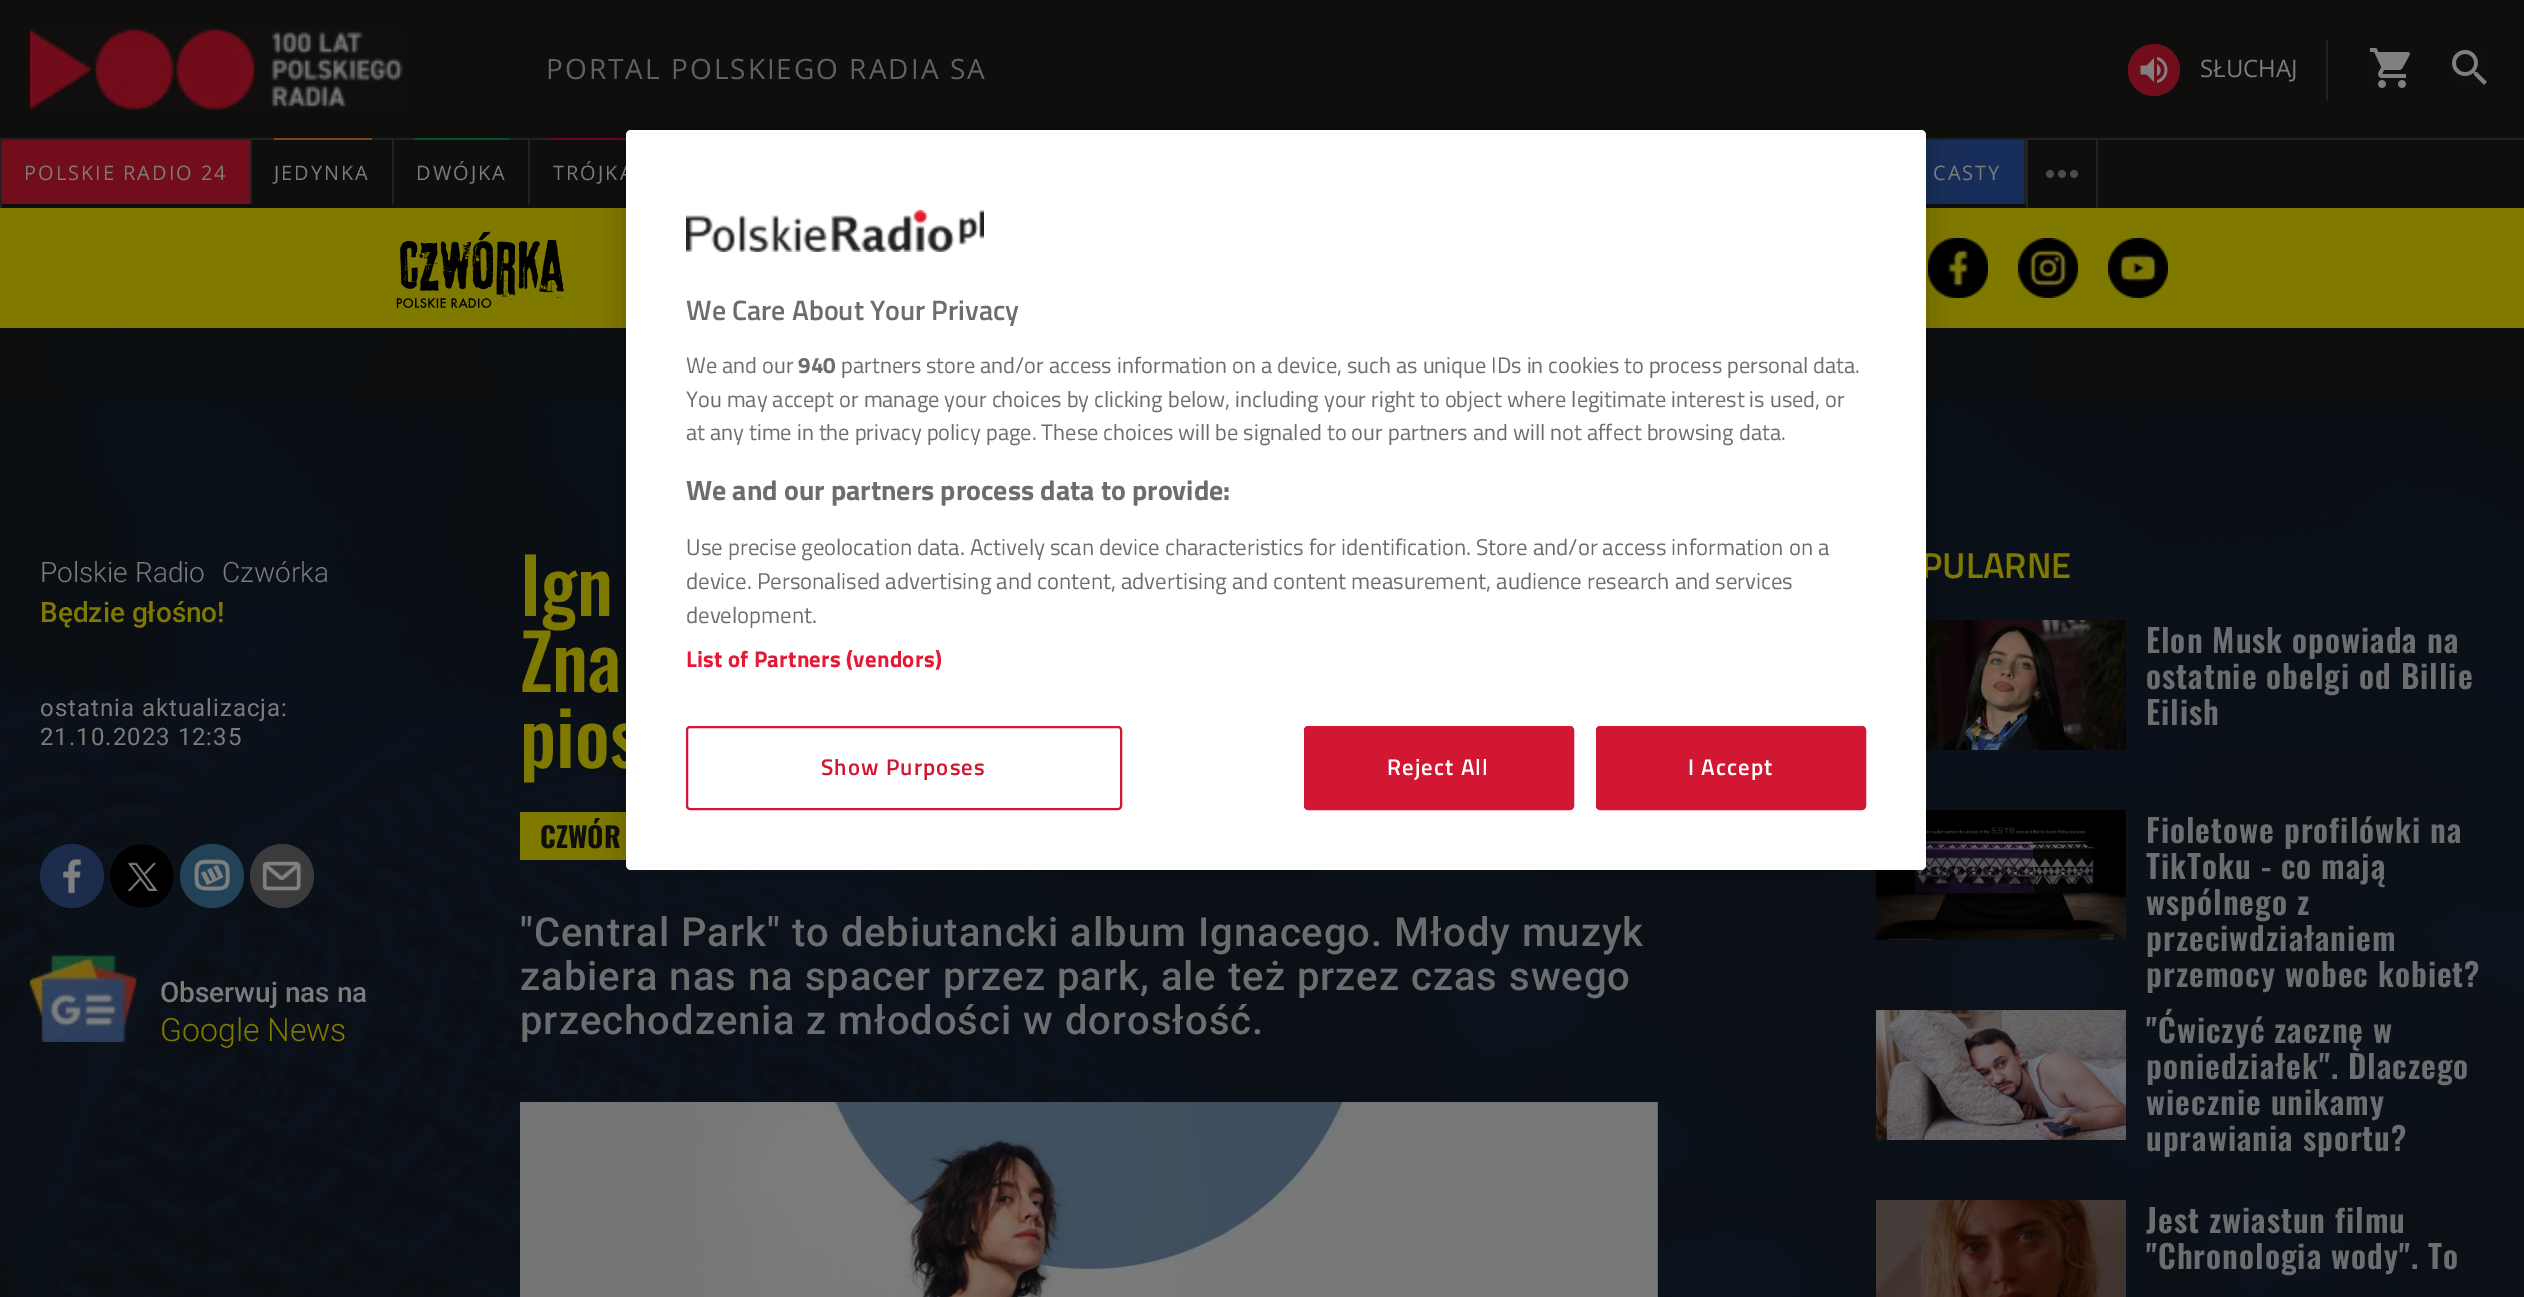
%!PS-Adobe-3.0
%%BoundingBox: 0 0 2524 1297
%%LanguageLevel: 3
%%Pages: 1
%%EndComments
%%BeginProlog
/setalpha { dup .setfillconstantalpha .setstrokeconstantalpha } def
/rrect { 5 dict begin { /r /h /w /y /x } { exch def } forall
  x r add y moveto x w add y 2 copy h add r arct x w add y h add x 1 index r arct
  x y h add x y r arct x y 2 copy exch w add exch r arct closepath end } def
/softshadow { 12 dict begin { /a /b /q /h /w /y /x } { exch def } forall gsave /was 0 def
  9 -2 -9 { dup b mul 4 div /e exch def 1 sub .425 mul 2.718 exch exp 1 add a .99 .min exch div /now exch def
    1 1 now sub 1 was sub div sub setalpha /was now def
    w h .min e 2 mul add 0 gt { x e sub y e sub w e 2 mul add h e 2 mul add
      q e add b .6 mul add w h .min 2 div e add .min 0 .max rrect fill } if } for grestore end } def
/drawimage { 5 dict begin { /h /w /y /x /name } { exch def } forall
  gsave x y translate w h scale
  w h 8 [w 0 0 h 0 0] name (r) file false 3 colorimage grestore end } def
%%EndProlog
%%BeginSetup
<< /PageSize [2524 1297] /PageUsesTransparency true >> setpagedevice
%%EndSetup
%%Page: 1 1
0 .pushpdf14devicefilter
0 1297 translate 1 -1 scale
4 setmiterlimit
0.055 0.055 0.051 setrgbcolor
0 0 2524 1297 rectfill
0.133 setgray
0 138 2524 2 rectfill
(images/1.raw) 30 28 374 82 drawimage
0.447 0.051 0.106 setrgbcolor
newpath 2154 70 26 0 360 arc closepath fill
(images/2.raw) 2140 56 28 28 drawimage
0.133 setgray
2326 40 2 60 rectfill
(images/3.raw) 2369 48 41 40 drawimage
(images/4.raw) 2452 50 35 35 drawimage
0 140 2 68 rectfill
0.447 0.051 0.106 setrgbcolor
2 140 248 64 rectfill
0.133 setgray
250 140 2 64 rectfill
392 140 2 64 rectfill
0.482 0.278 0.059 setrgbcolor
274 138 98 2 rectfill
0.133 setgray
528 140 2 64 rectfill
0 0.31 0.192 setrgbcolor
414 138 96 2 rectfill
0.424 0.008 0.224 setrgbcolor
550 138 76 2 rectfill
0.094 0.18 0.353 setrgbcolor
1926 140 98 64 rectfill
0.133 setgray
2024 140 2 64 rectfill
2096 140 2 68 rectfill
2026 140 2 68 rectfill
(images/5.raw) 2046 170 32 8 drawimage
0.502 0.475 0 setrgbcolor
0 208 2524 120 rectfill
(images/6.raw) 396 231 168 77 drawimage
(images/7.raw) 1928 238 60 60 drawimage
(images/8.raw) 2018 238 60 60 drawimage
(images/9.raw) 2108 238 60 60 drawimage
0.051 0.063 0.078 setrgbcolor
0 402 2524 895 rectfill
(images/10.raw) 0 330 2524 967 drawimage
0.502 0.475 0 setrgbcolor
520 812 106 48 rectfill
0.106 0.173 0.302 setrgbcolor
newpath 72 876 32 0 360 arc closepath fill
(images/11.raw) 63 859 18 35 drawimage
(images/12.raw) 110 844 64 64 drawimage
0.133 0.259 0.345 setrgbcolor
newpath 212 876 32 0 360 arc closepath fill
(images/13.raw) 194 859 37 32 drawimage
0.231 setgray
newpath 282 876 32 0 360 arc closepath fill
(images/14.raw) 262 861 40 30 drawimage
(images/15.raw) 30 954 107 88 drawimage
(images/16.raw) 520 1102 1138 195 drawimage
(images/17.raw) 1926 620 200 130 drawimage
(images/18.raw) 1876 810 250 130 drawimage
(images/19.raw) 1876 1010 250 130 drawimage
(images/20.raw) 1876 1200 250 97 drawimage
0 setgray
626 130 1300 740 5 18 0.2 softshadow
/OpenSans-Regular [28 0 0 -28 0 0] selectfont
0.376 setgray
546 79 moveto 2 0 (PORTAL POLSKIEGO RADIA SA) ashow
/OpenSans-Regular [24 0 0 -24 0 0] selectfont
0.486 0.482 0.482 setrgbcolor
2200 77 moveto (SŁUCHAJ) show
/OpenSans-Regular [20 0 0 -20 0 0] selectfont
24 180 moveto 2 0 (POLSKIE RADIO 24) ashow
274 180 moveto 2 0 (JEDYNKA) ashow
416 180 moveto 2 0 (DWÓJKA) ashow
553 180 moveto 2 0 (TRÓJKA) ashow
1933 180 moveto 2 0 (CASTY) ashow
/Roboto-Regular [24 0 0 -24 0 0] selectfont
40 716 moveto 1 0 (ostatnia aktualizacja:) ashow
40 745 moveto 1 0 (21.10.2023 12:35) ashow
/Oswald-Medium [76 0 0 -76 0 0] selectfont
0.502 0.475 0 setrgbcolor
520 616 moveto (Ign) show
520 692 moveto (Zna) show
520 768 moveto (pios) show
/Oswald-Bold [28 0 0 -28 0 0] selectfont
0.055 0.055 0.051 setrgbcolor
540 848 moveto (CZWÓR) show
/Roboto-Medium [28 0 0 -28 0 0] selectfont
0.486 0.482 0.482 setrgbcolor
160 1002 moveto (Obserwuj nas na) show
/Roboto-Light [32 0 0 -32 0 0] selectfont
0.502 0.475 0 setrgbcolor
160 1041 moveto (Google News) show
/Roboto-Medium [40 0 0 -40 0 0] selectfont
0.424 0.427 0.431 setrgbcolor
520 946 moveto 1 0 ("Central Park" to debiutancki album Ignacego. Młody muzyk) ashow
520 990 moveto 1 0 (zabiera nas na spacer przez park, ale też przez czas swego) ashow
520 1034 moveto 1 0 (przechodzenia z młodości w dorosłość.) ashow
/Roboto-Light [28 0 0 -28 0 0] selectfont
0.486 0.482 0.482 setrgbcolor
40 582 moveto (Polskie Radio) show
222 582 moveto (Czwórka) show
/Roboto-Medium [28 0 0 -28 0 0] selectfont
0.502 0.475 0 setrgbcolor
40 622 moveto (Będzie głośno!) show
/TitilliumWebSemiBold-SemiBold [36 0 0 -36 0 0] selectfont
1921 578 moveto (PULARNE) show
/Oswald-SemiBold [32 0 0 -32 0 0] selectfont
0.424 0.427 0.431 setrgbcolor
2146 653 moveto 1 0 (Elon Musk opowiada na) ashow
2146 689 moveto 1 0 (ostatnie obelgi od Billie) ashow
2146 725 moveto 1 0 (Eilish) ashow
2146 843 moveto 1 0 (Fioletowe profilówki na) ashow
2146 879 moveto 1 0 (TikToku - co mają) ashow
2146 915 moveto 1 0 (wspólnego z) ashow
2146 951 moveto 1 0 (przeciwdziałaniem) ashow
2146 987 moveto 1 0 (przemocy wobec kobiet?) ashow
2146 1043 moveto 1 0 ("Ćwiczyć zacznę w) ashow
2146 1079 moveto 1 0 (poniedziałek". Dlaczego) ashow
2146 1115 moveto 1 0 (wiecznie unikamy) ashow
2146 1151 moveto 1 0 (uprawiania sportu?) ashow
2146 1233 moveto 1 0 (Jest zwiastun filmu) ashow
2146 1269 moveto 1 0 ("Chronologia wody". To) ashow
1 setgray
626 130 1300 740 5 rrect fill
(images/21.raw) 686 210 298 42 drawimage
/TitilliumWebSemiBold-SemiBold [28 0 0 -28 0 0] selectfont
0.424 0.427 0.431 setrgbcolor
686 320 moveto (We Care About Your Privacy) show
/TitilliumWeb-Regular [22.4 0 0 -22.4 0 0] selectfont
686 373 moveto (We and our) show
/TitilliumWeb-Bold [22.4 0 0 -22.4 0 0] selectfont
798 373 moveto (940) show
/TitilliumWeb-Regular [22.4 0 0 -22.4 0 0] selectfont
841 373 moveto (partners store and/or access information on a device, such as unique IDs in cookies to process personal data.) show
686 407 moveto (You may accept or manage your choices by clicking below, including your right to object where legitimate interest is used, or) show
686 440 moveto (at any time in the privacy policy page. These choices will be signaled to our partners and will not affect browsing data.) show
/TitilliumWeb-Bold [28 0 0 -28 0 0] selectfont
686 500 moveto (We and our partners process data to provide:) show
/TitilliumWeb-Regular [22.75 0 0 -22.75 0 0] selectfont
686 555 moveto (Use precise geolocation data. Actively scan device characteristics for identification. Store and/or access information on a) show
686 589 moveto (device. Personalised advertising and content, advertising and content measurement, audience research and services) show
686 623 moveto (development.) show
/TitilliumWeb-Bold [22.75 0 0 -22.75 0 0] selectfont
0.89 0.098 0.212 setrgbcolor
686 667 moveto 0.25 0 (List of Partners \(vendors\)) ashow
0.824 0.09 0.2 setrgbcolor
2 setlinewidth
687 727 434 82 3 rrect stroke
/TitilliumWebSemiBold-SemiBold [22.75 0 0 -22.75 0 0] selectfont
821 775 moveto 1.1 0 (Show Purposes) ashow
1305 727 268 82 3 rrect gsave fill grestore
stroke
1 setgray
1387 775 moveto 1.1 0 (Reject All) ashow
0.824 0.09 0.2 setrgbcolor
1597 727 268 82 3 rrect gsave fill grestore
stroke
1 setgray
1688 775 moveto 1.1 0 (I Accept) ashow
.poppdf14devicefilter showpage
%%EOF
